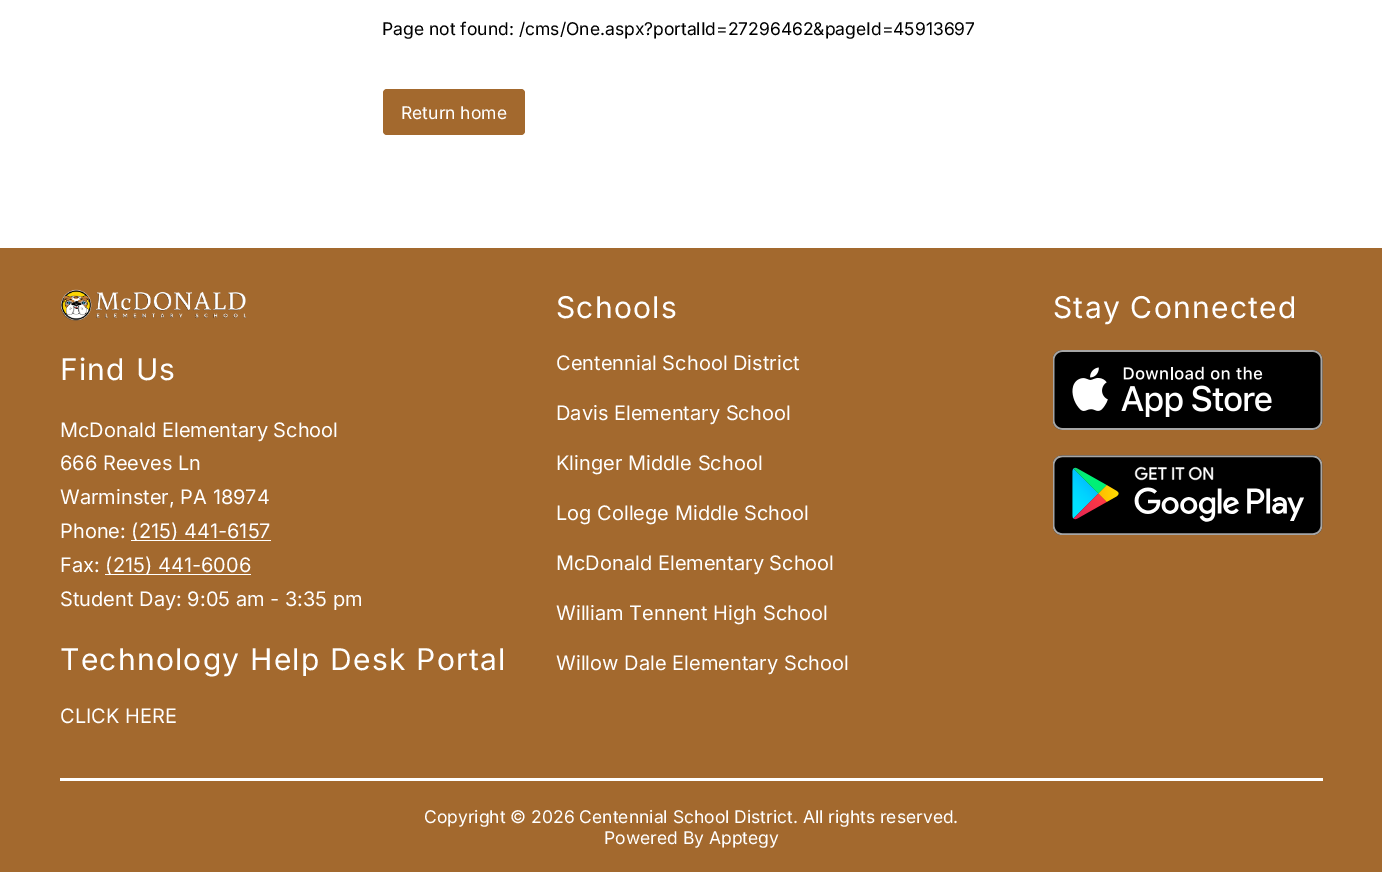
%!PS-Adobe-3.0
%%BoundingBox: 0 0 1382 872
%%LanguageLevel: 3
%%Pages: 1
%%EndComments
%%BeginProlog
/rrect { 5 dict begin { /r /h /w /y /x } { exch def } forall
  x r add y moveto x w add y 2 copy h add r arct x w add y h add x 1 index r arct
  x y h add x y r arct x y 2 copy exch w add exch r arct closepath end } def
/drawimage { 5 dict begin { /h /w /y /x /name } { exch def } forall
  gsave x y translate w h scale
  w h 8 [w 0 0 h 0 0] name (r) file false 3 colorimage grestore end } def
%%EndProlog
%%BeginSetup
<< /PageSize [1382 872] >> setpagedevice
%%EndSetup
%%Page: 1 1
0 872 translate 1 -1 scale
4 setmiterlimit
1 setgray
0 0 1382 872 rectfill
0.639 0.412 0.18 setrgbcolor
383 89 142 46 4 rrect fill
0 248 1382 624 rectfill
(images/1.raw) 1053 350 270 80 drawimage
(images/2.raw) 1053 455 270 80 drawimage
(images/3.raw) 60 289 187 32 drawimage
1 setgray
131 540 140 1 rectfill
105 574 146 1 rectfill
60 778 1263 3 rectfill
/Inter-Regular [17.5 0 0 -17.5 0 0] selectfont
0 setgray
382 35 moveto (Page not found: /cms/One.aspx?portalId=27296462&pageId=45913697) show
1 setgray
401 119 moveto (Return home) show
/Inter-Regular [30 0 0 -30 0 0] selectfont
556 318 moveto 1.25 0 (Schools) ashow
/Inter-Regular [20 0 0 -20 0 0] selectfont
556 370 moveto (Centennial School District) show
556 420 moveto (Davis Elementary School) show
556 470 moveto (Klinger Middle School) show
556 520 moveto (Log College Middle School) show
556 570 moveto (McDonald Elementary School) show
556 620 moveto (William Tennent High School) show
556 670 moveto (Willow Dale Elementary School) show
/Inter-Regular [30 0 0 -30 0 0] selectfont
1053 318 moveto 1.25 0 (Stay Connected) ashow
60 380 moveto 1.25 0 (Find Us) ashow
/Inter-Regular [20 0 0 -20 0 0] selectfont
60 437 moveto (McDonald Elementary School) show
60 470 moveto (666 Reeves Ln) show
60 504 moveto (Warminster, PA 18974) show
60 538 moveto (Phone: \(215\) 441-6157) show
60 572 moveto (Fax: \(215\) 441-6006) show
60 606 moveto (Student Day: 9:05 am - 3:35 pm) show
/Inter-Regular [30 0 0 -30 0 0] selectfont
60 670 moveto 1.25 0 (Technology Help Desk Portal) ashow
/Inter-Regular [20 0 0 -20 0 0] selectfont
60 723 moveto (CLICK HERE) show
/Inter-Regular [17.5 0 0 -17.5 0 0] selectfont
424 823 moveto (Copyright © 2026 Centennial School District. All rights reserved.) show
604 844 moveto (Powered By Apptegy) show
showpage
%%EOF
